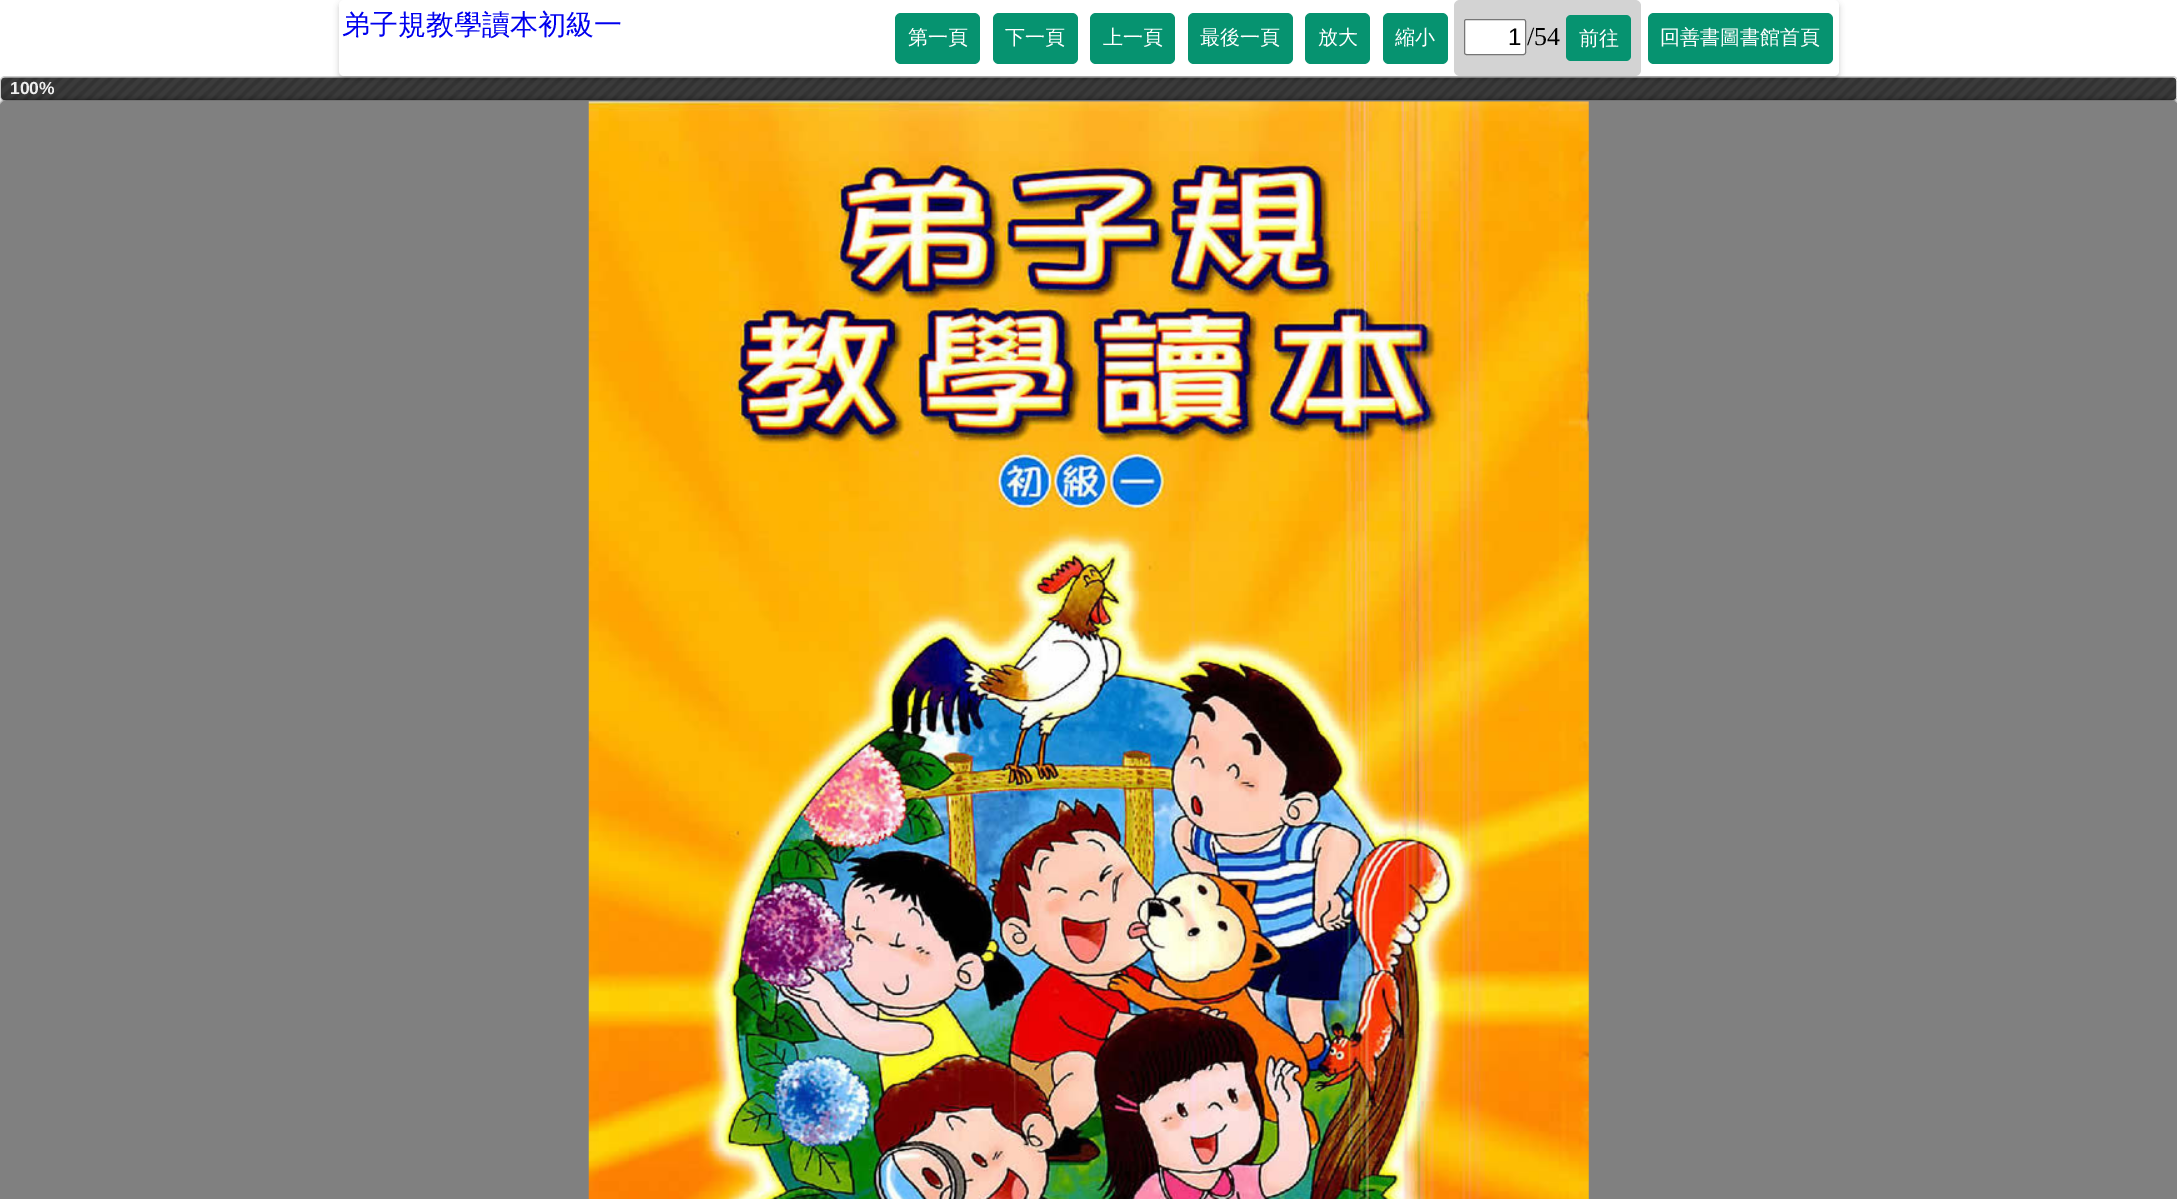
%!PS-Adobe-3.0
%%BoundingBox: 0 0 2177 1199
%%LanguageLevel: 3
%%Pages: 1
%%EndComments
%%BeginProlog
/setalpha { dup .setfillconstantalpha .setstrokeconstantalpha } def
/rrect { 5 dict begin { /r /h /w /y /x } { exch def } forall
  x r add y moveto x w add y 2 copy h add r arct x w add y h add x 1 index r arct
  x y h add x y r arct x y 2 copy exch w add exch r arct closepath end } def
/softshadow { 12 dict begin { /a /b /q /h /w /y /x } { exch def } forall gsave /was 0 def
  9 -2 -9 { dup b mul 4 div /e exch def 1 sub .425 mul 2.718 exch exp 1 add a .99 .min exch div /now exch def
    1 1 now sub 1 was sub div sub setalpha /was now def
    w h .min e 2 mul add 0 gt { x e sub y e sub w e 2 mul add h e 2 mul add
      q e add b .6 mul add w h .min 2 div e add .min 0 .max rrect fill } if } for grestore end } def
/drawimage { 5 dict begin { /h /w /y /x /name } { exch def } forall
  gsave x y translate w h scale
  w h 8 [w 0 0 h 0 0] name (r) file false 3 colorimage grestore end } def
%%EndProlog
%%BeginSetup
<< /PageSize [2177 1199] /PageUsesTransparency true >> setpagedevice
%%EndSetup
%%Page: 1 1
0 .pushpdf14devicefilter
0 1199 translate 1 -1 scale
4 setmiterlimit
1 setgray
0 0 2177 1199 rectfill
0.976 setgray
0.5 76.5 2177 24 4.5 rrect gsave fill grestore
0.8 setgray
stroke
(images/1.raw) 1 77 2176 23 drawimage
0 setgray
339 3 1500 76 5 3 0.2 softshadow
1 setgray
339 0 1500 76 5 rrect fill
0.024 0.576 0.439 setrgbcolor
895 13 85 51 6 rrect fill
993 13 85 51 6 rrect fill
1090 13 85 51 6 rrect fill
1188 13 105 51 6 rrect fill
1305 13 65 51 6 rrect fill
1383 13 65 51 6 rrect fill
0.827 setgray
1454 0 187 76 6 rrect fill
1 setgray
1464.5 19.5 61 35 2 rrect gsave fill grestore
0.463 setgray
stroke
0.024 0.576 0.439 setrgbcolor
1566 15 65 46 5 rrect fill
1648 13 185 51 6 rrect fill
0 setgray
0 101 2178 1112 6 2.5 1 softshadow
0.502 setgray
0 101 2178 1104 6 rrect fill
(images/2.raw) 588 101 1001 1098 drawimage
/WenQuanYiZenHei-Medium [28 0 0 -28 0 0] selectfont
0 0 0.933 setrgbcolor
342 34 moveto (弟子規教學讀本初級一) show
/WenQuanYiZenHei-Medium [20 0 0 -20 0 0] selectfont
1 setgray
908 44 moveto (第一頁) show
1005 44 moveto (下一頁) show
1103 44 moveto (上一頁) show
1200 44 moveto (最後一頁) show
1318 44 moveto (放大) show
1395 44 moveto (縮小) show
/LiberationSans-Regular [24 0 0 -24 0 0] selectfont
0 setgray
1508 45 moveto (1) show
/LiberationSerif-Regular [26 0 0 -26 0 0] selectfont
1527 45 moveto (/54) show
/WenQuanYiZenHei-Medium [20 0 0 -20 0 0] selectfont
1 setgray
1579 45 moveto (前往) show
1660 44 moveto (回善書圖書館首頁) show
/LiberationSans-Bold [17.5 0 0 -17.5 0 0] selectfont
0.933 setgray
10 94 moveto (100%) show
.poppdf14devicefilter showpage
%%EOF
